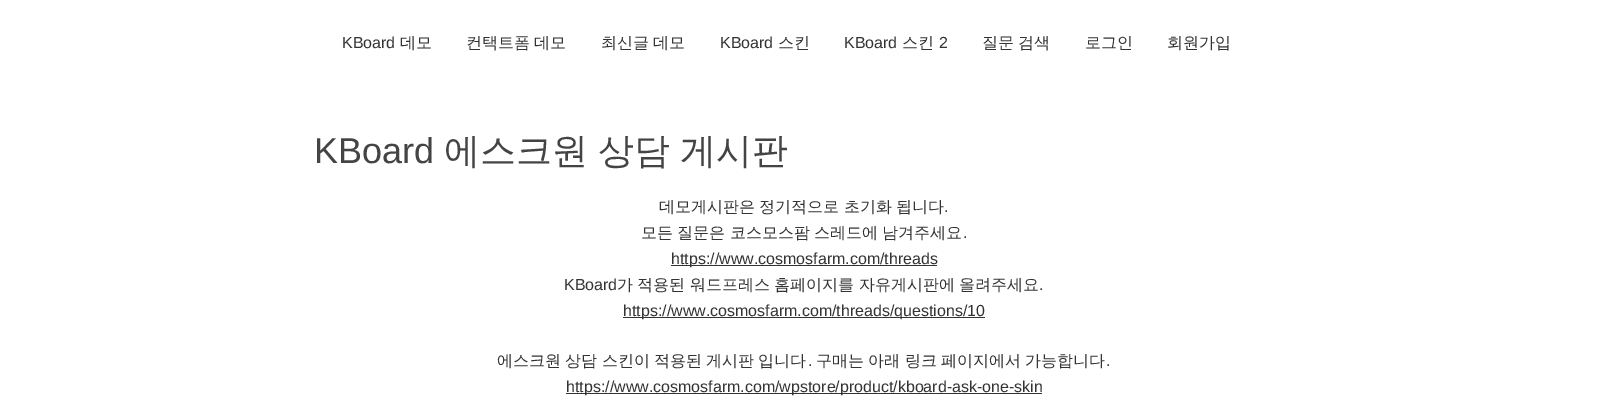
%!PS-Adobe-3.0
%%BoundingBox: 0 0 1608 419
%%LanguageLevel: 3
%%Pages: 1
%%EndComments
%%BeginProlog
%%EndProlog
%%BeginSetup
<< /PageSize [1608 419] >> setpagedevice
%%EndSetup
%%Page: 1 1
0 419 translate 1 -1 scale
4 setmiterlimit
1 setgray
0 0 1608 419 rectfill
0.2 setgray
671 265 266 1 rectfill
623 317 362 1 rectfill
566 393 476 1 rectfill
/LiberationSans-Regular [16 0 0 -16 0 0] selectfont
342 48 moveto (KBoard) show
/WenQuanYiZenHei-Medium [16 0 0 -16 0 0] selectfont
400 48 moveto (데모) show
466 48 moveto -0.5 0 32 (컨택트폼 데모) widthshow
601 48 moveto -0.5 0 32 (최신글 데모) widthshow
/LiberationSans-Regular [16 0 0 -16 0 0] selectfont
720 48 moveto (KBoard) show
/WenQuanYiZenHei-Medium [16 0 0 -16 0 0] selectfont
778 48 moveto (스킨) show
/LiberationSans-Regular [16 0 0 -16 0 0] selectfont
844 48 moveto (KBoard) show
/WenQuanYiZenHei-Medium [16 0 0 -16 0 0] selectfont
902 48 moveto (스킨) show
/LiberationSans-Regular [16 0 0 -16 0 0] selectfont
939 48 moveto (2) show
/WenQuanYiZenHei-Medium [16 0 0 -16 0 0] selectfont
982 48 moveto -0.5 0 32 (질문 검색) widthshow
1085 48 moveto (로그인) show
1167 48 moveto (회원가입) show
/LiberationSans-Regular [36 0 0 -36 0 0] selectfont
0.267 setgray
314 163 moveto (KBoard) show
/WenQuanYiZenHei-Medium [36 0 0 -36 0 0] selectfont
444 163 moveto -1 0 32 (에스크원 상담 게시판) widthshow
/WenQuanYiZenHei-Medium [16 0 0 -16 0 0] selectfont
0.2 setgray
659 212 moveto -0.5 0 32 (데모게시판은 정기적으로 초기화 됩니다) widthshow
/LiberationSans-Regular [16 0 0 -16 0 0] selectfont
944 212 moveto (.) show
/WenQuanYiZenHei-Medium [16 0 0 -16 0 0] selectfont
641 238 moveto -0.5 0 32 (모든 질문은 코스모스팜 스레드에 남겨주세요) widthshow
/LiberationSans-Regular [16 0 0 -16 0 0] selectfont
963 238 moveto (.) show
671 264 moveto (https://www.cosmosfarm.com/threads) show
564 290 moveto (KBoard) show
/WenQuanYiZenHei-Medium [16 0 0 -16 0 0] selectfont
617 290 moveto -0.5 0 32 (가 적용된 워드프레스 홈페이지를) widthshow
859 290 moveto (자유게시판에) show
959 290 moveto (올려주세요) show
/LiberationSans-Regular [16 0 0 -16 0 0] selectfont
1039 290 moveto (.) show
623 316 moveto (https://www.cosmosfarm.com/threads/questions/10) show
/WenQuanYiZenHei-Medium [16 0 0 -16 0 0] selectfont
497 366 moveto -0.5 0 32 (에스크원 상담 스킨이 적용된 게시판 입니다) widthshow
/LiberationSans-Regular [16 0 0 -16 0 0] selectfont
808 366 moveto (.) show
/WenQuanYiZenHei-Medium [16 0 0 -16 0 0] selectfont
816 366 moveto -0.5 0 32 (구매는 아래 링크 페이지에서 가능합니다) widthshow
/LiberationSans-Regular [16 0 0 -16 0 0] selectfont
1106 366 moveto (.) show
566 392 moveto (https://www.cosmosfarm.com/wpstore/product/kboard-ask-one-skin) show
showpage
%%EOF
